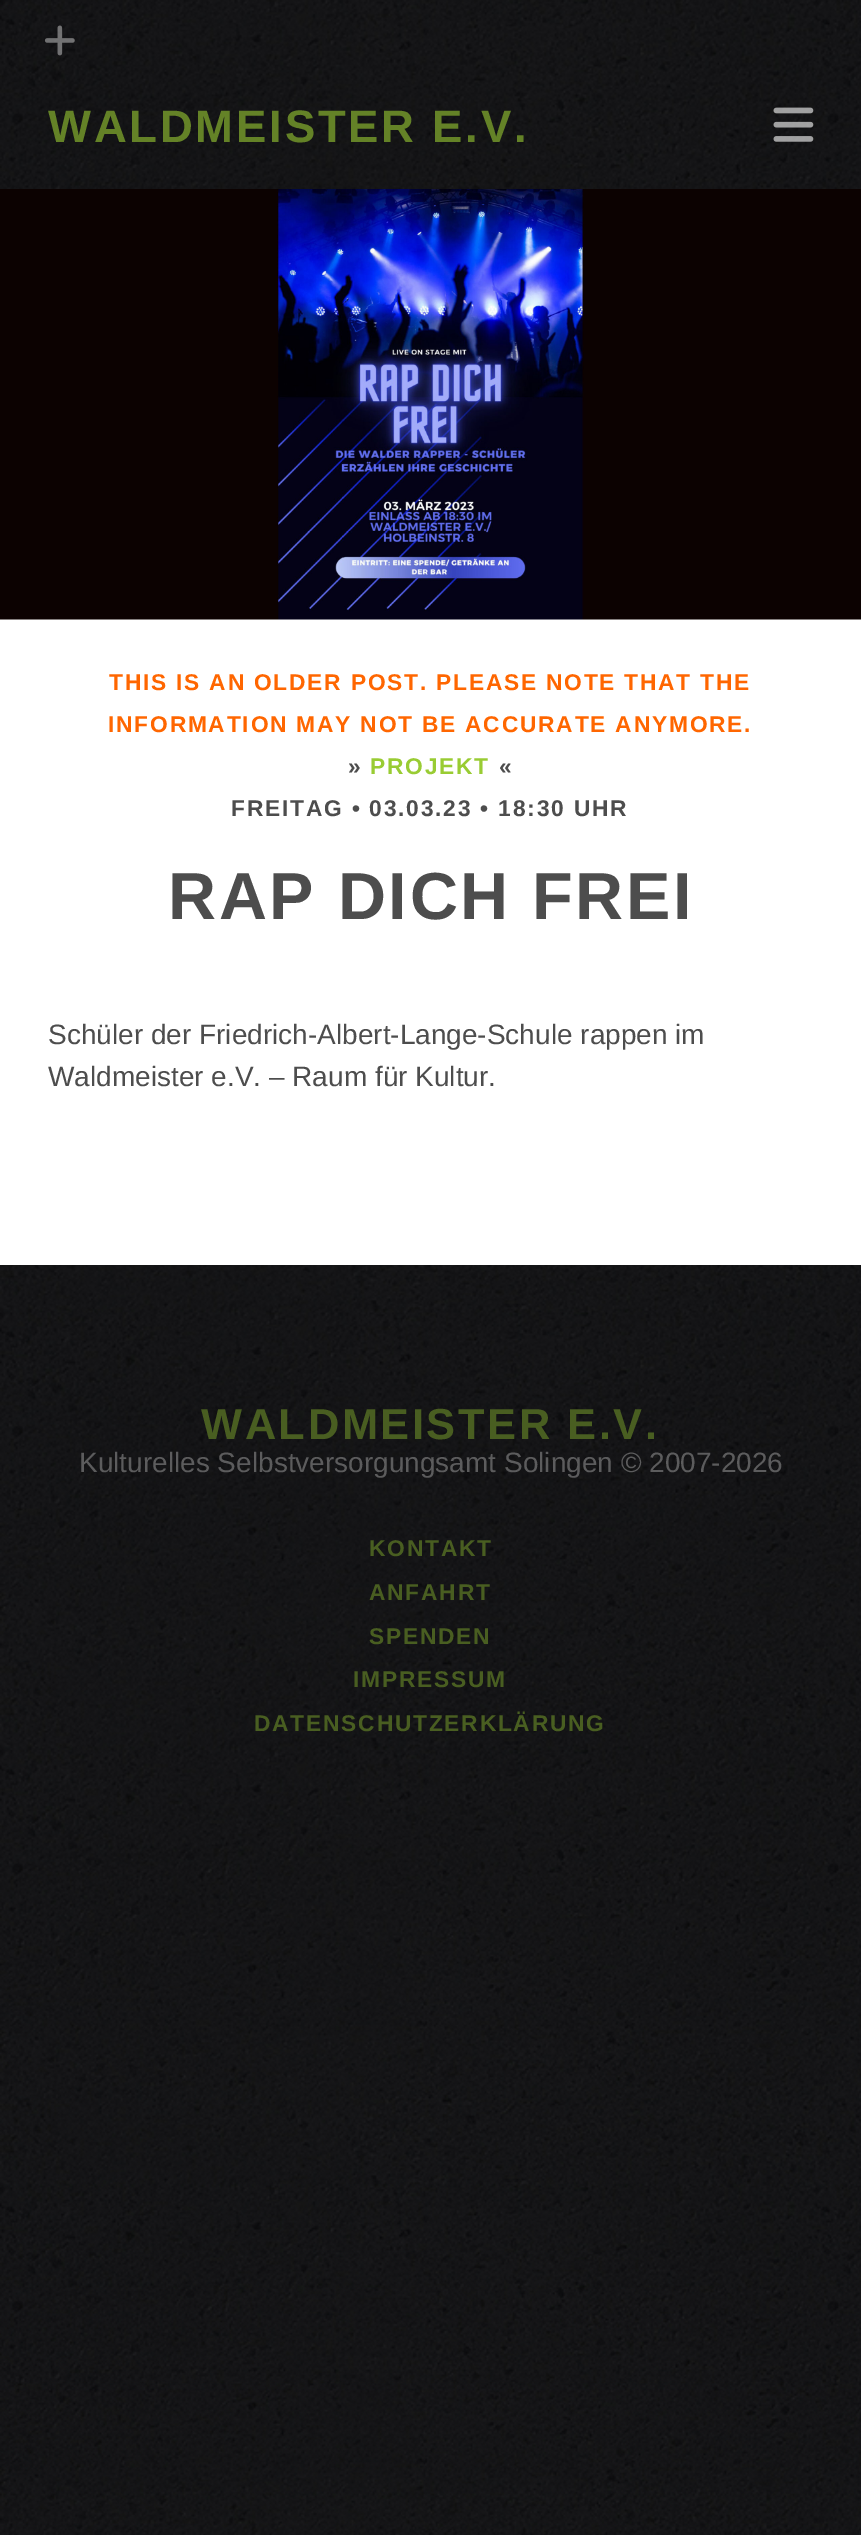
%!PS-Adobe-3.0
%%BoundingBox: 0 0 861 2535
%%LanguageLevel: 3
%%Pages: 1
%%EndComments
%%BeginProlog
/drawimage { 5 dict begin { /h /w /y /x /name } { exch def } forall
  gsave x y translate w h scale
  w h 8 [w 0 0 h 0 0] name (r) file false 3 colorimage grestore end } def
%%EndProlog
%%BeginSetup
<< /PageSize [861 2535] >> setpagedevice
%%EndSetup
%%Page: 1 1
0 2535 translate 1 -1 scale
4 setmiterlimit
1 setgray
0 0 861 2535 rectfill
(images/1.raw) 0 0 861 2535 drawimage
(images/2.raw) 44 25 31 31 drawimage
(images/3.raw) 773 107 41 35 drawimage
0 619 861 646 rectfill
(images/4.raw) 0 189 861 431 drawimage
/LiberationSans-Bold [45.5 0 0 -45.5 0 0] selectfont
0.392 0.51 0.153 setrgbcolor
48 142 moveto 2.75 0 (WALDMEISTER E.V.) ashow
/LiberationSans-Bold [22.75 0 0 -22.75 0 0] selectfont
1 0.4 0 setrgbcolor
109 690 moveto 1.8 0 (THIS IS AN OLDER POST. PLEASE NOTE THAT THE) ashow
108 732 moveto 1.8 0 (INFORMATION MAY NOT BE ACCURATE ANYMORE.) ashow
0.302 setgray
348 774 moveto 1.8 0 (») ashow
0.6 0.8 0.2 setrgbcolor
370 774 moveto 1.8 0 (PROJEKT) ashow
0.302 setgray
499 774 moveto 1.8 0 («) ashow
231 816 moveto 1.8 0 (FREITAG • 03.03.23 • 18:30 UHR) ashow
/LiberationSans-Bold [66.5 0 0 -66.5 0 0] selectfont
168 919 moveto 2.7 0 (RAP DICH FREI) ashow
/LiberationSans-Regular [28 0 0 -28 0 0] selectfont
48 1044 moveto (Schüler der Friedrich-Albert-Lange-Schule rappen im) show
48 1086 moveto (Waldmeister e.V. – Raum für Kultur.) show
/LiberationSans-Bold [43.4 0 0 -43.4 0 0] selectfont
0.286 0.369 0.129 setrgbcolor
201 1439 moveto 2.6 0 (WALDMEISTER E.V.) ashow
/LiberationSans-Regular [28 0 0 -28 0 0] selectfont
0.361 0.361 0.365 setrgbcolor
79 1472 moveto (Kulturelles Selbstversorgungsamt Solingen © 2007-2026) show
/LiberationSans-Bold [22.75 0 0 -22.75 0 0] selectfont
0.286 0.369 0.129 setrgbcolor
369 1556 moveto 1.8 0 (KONTAKT) ashow
369 1600 moveto 1.8 0 (ANFAHRT) ashow
369 1644 moveto 1.8 0 (SPENDEN) ashow
353 1687 moveto 1.8 0 (IMPRESSUM) ashow
254 1731 moveto 1.8 0 (DATENSCHUTZERKLÄRUNG) ashow
showpage
%%EOF
